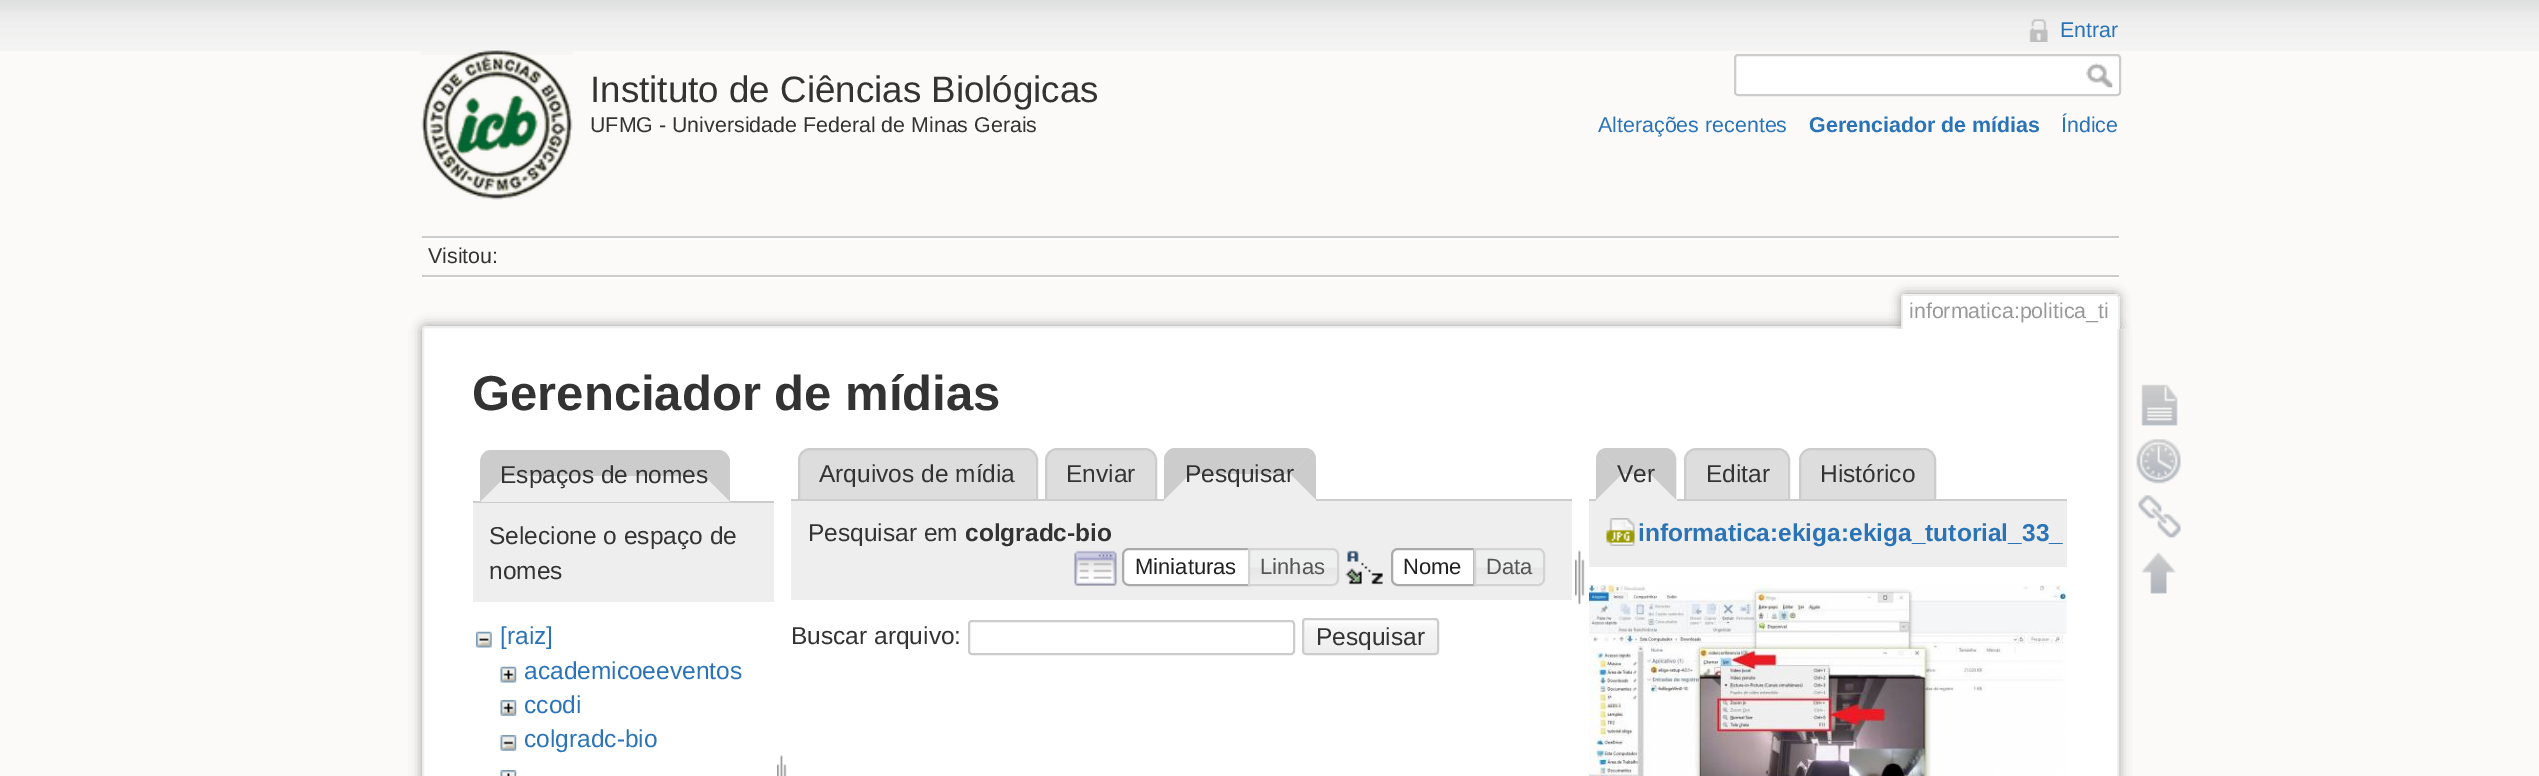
%!PS-Adobe-3.0
%%BoundingBox: 0 0 2539 776
%%LanguageLevel: 3
%%Pages: 1
%%EndComments
%%BeginProlog
/setalpha { dup .setfillconstantalpha .setstrokeconstantalpha } def
/rrect { 5 dict begin { /r /h /w /y /x } { exch def } forall
  x r add y moveto x w add y 2 copy h add r arct x w add y h add x 1 index r arct
  x y h add x y r arct x y 2 copy exch w add exch r arct closepath end } def
/softshadow { 12 dict begin { /a /b /q /h /w /y /x } { exch def } forall gsave /was 0 def
  9 -2 -9 { dup b mul 4 div /e exch def 1 sub .425 mul 2.718 exch exp 1 add a .99 .min exch div /now exch def
    1 1 now sub 1 was sub div sub setalpha /was now def
    w h .min e 2 mul add 0 gt { x e sub y e sub w e 2 mul add h e 2 mul add
      q e add b .6 mul add w h .min 2 div e add .min 0 .max rrect fill } if } for grestore end } def
/drawimage { 5 dict begin { /h /w /y /x /name } { exch def } forall
  gsave x y translate w h scale
  w h 8 [w 0 0 h 0 0] name (r) file false 3 colorimage grestore end } def
%%EndProlog
%%BeginSetup
<< /PageSize [2539 776] /PageUsesTransparency true >> setpagedevice
%%EndSetup
%%Page: 1 1
0 .pushpdf14devicefilter
0 776 translate 1 -1 scale
4 setmiterlimit
0.984 0.98 0.976 setrgbcolor
0 0 2539 776 rectfill
(images/1.raw) 0 0 2539 51 drawimage
(images/2.raw) 421 50 152 150 drawimage
(images/3.raw) 2029 19 19 23 drawimage
1 setgray
1735 55 385 40 3 rrect gsave fill grestore
0.8 setgray
2 setlinewidth
stroke
(images/4.raw) 2086 63 27 25 drawimage
422 236 1697 2 rectfill
1 setgray
422 277 1697 2 rectfill
422 238 1697 2 rectfill
0.8 setgray
422 275 1697 2 rectfill
0.6 setgray
422 326 1697 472 4 6 1 softshadow
1 setgray
423 327 1695 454 3 rrect gsave fill grestore
0.933 setgray
stroke
gsave
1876 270 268 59 rectclip
0.6 setgray
1901 294 218 35 4 5.5 1 softshadow
grestore
1 setgray
newpath 1904 296 moveto 2116 296 lineto 2117 296 2118 297 2118 298 curveto 2118 329 lineto 1902 329 lineto 1902 298 lineto 1902 297 1903 296 1904 296 curveto closepath fill
0.933 setgray
1902 294 216 2 rectfill
2118 296 2 33 rectfill
1901 296 2 33 rectfill
0.8 setgray
newpath 492 450 moveto 488 450 485 451 483 454 curveto 506 476 lineto 704 476 lineto 726 453 lineto 724 451 721 450 718 450 curveto closepath fill
473 501 301 2 rectfill
newpath 730 502 moveto 704 476 lineto 726 453 lineto 728 455 729 457 730 460 curveto closepath fill
0.933 setgray
newpath 730 502 moveto 704 476 lineto 506 476 lineto 480 502 lineto closepath fill
0.8 setgray
newpath 483 454 moveto 481 456 480 459 480 462 curveto 480 502 lineto 506 476 lineto closepath fill
0.933 setgray
473 503 301 99 rectfill
(images/5.raw) 476 631 16 17 drawimage
(images/6.raw) 500 666 17 17 drawimage
(images/7.raw) 500 700 17 16 drawimage
(images/8.raw) 500 735 17 16 drawimage
(images/9.raw) 500 770 17 6 drawimage
(images/10.raw) 777 754 10 22 drawimage
0.867 setgray
newpath 810 449 moveto 1026 449 lineto 1032 449 1037 454 1037 460 curveto 1037 500 lineto 799 500 lineto 799 460 lineto 799 454 804 449 810 449 curveto closepath gsave fill grestore
0.8 setgray
stroke
0.867 setgray
newpath 1057 449 moveto 1145 449 lineto 1151 449 1156 454 1156 460 curveto 1156 500 lineto 1046 500 lineto 1046 460 lineto 1046 454 1051 449 1057 449 curveto closepath gsave fill grestore
0.8 setgray
stroke
791 499 781 2 rectfill
0.933 setgray
newpath 1176 448 moveto 1304 448 lineto 1310.5 448 1316 453.5 1316 460 curveto 1316 501 lineto 1164 501 lineto 1164 460 lineto 1164 453.5 1169.5 448 1176 448 curveto closepath fill
0.8 setgray
newpath 1176 448 moveto 1304 448 lineto 1308 448 1310 449 1313 451 curveto 1290 474 lineto 1190 474 lineto 1167 452 lineto 1169 449 1172 448 1176 448 curveto closepath fill
newpath 1313 451 moveto 1290 474 lineto 1316 500 lineto 1316 460 lineto 1316 456 1315 454 1313 451 curveto closepath fill
0.933 setgray
newpath 1316 500 moveto 1290 474 lineto 1190 474 lineto 1164 500 lineto closepath fill
0.8 setgray
newpath 1167 452 moveto 1165 454 1164 457 1164 460 curveto 1164 500 lineto 1190 474 lineto closepath fill
0.933 setgray
791 501 781 99 rectfill
(images/11.raw) 1074 550 43 36 drawimage
1 setgray
newpath 1129 548 moveto 1250 548 lineto 1250 586 lineto 1129 586 lineto 1125 586 1122 583 1122 579 curveto 1122 555 lineto 1122 551 1125 548 1129 548 curveto closepath fill
(images/12.raw) 1122 548 5 38 drawimage
0.667 setgray
newpath 1129 549 moveto 1249 549 lineto 1249 585 lineto 1129 585 lineto 1125.5 585 1123 582.5 1123 579 curveto 1123 555 lineto 1123 551.5 1125.5 549 1129 549 curveto closepath stroke
(images/13.raw) 1247 548 92 38 drawimage
0.827 setgray
newpath 1249 549 moveto 1332 549 lineto 1335.5 549 1338 551.5 1338 555 curveto 1338 579 lineto 1338 582.5 1335.5 585 1332 585 curveto 1249 585 lineto closepath stroke
(images/14.raw) 1345 550 38 35 drawimage
1 setgray
newpath 1398 548 moveto 1475 548 lineto 1475 586 lineto 1398 586 lineto 1394 586 1391 583 1391 579 curveto 1391 555 lineto 1391 551 1394 548 1398 548 curveto closepath fill
(images/15.raw) 1393 548 3 38 drawimage
0.667 setgray
newpath 1398 549 moveto 1474 549 lineto 1474 585 lineto 1398 585 lineto 1394.5 585 1392 582.5 1392 579 curveto 1392 555 lineto 1392 551.5 1394.5 549 1398 549 curveto closepath stroke
(images/16.raw) 1473 548 72 38 drawimage
0.827 setgray
newpath 1475 549 moveto 1538 549 lineto 1541.5 549 1544 551.5 1544 555 curveto 1544 579 lineto 1544 582.5 1541.5 585 1538 585 curveto 1475 585 lineto closepath stroke
(images/17.raw) 1575 549 10 56 drawimage
0.8 setgray
969 621 325 33 3 rrect stroke
(images/18.raw) 1302 618 136 37 drawimage
1303 619 135 35 3 rrect stroke
0.867 setgray
newpath 1696 449 moveto 1778 449 lineto 1784 449 1789 454 1789 460 curveto 1789 500 lineto 1685 500 lineto 1685 460 lineto 1685 454 1690 449 1696 449 curveto closepath gsave fill grestore
0.8 setgray
stroke
0.867 setgray
newpath 1811 449 moveto 1924 449 lineto 1930 449 1935 454 1935 460 curveto 1935 500 lineto 1800 500 lineto 1800 460 lineto 1800 454 1805 449 1811 449 curveto closepath gsave fill grestore
0.8 setgray
stroke
1589 499 478 2 rectfill
0.933 setgray
newpath 1608 448 moveto 1665 448 lineto 1671.5 448 1677 453.5 1677 460 curveto 1677 501 lineto 1596 501 lineto 1596 460 lineto 1596 453.5 1601.5 448 1608 448 curveto closepath fill
0.8 setgray
newpath 1608 448 moveto 1664 448 lineto 1668 448 1671 449 1673 452 curveto 1650 474 lineto 1622 474 lineto 1599 451 lineto 1602 449 1604 448 1608 448 curveto closepath fill
newpath 1673 452 moveto 1650 474 lineto 1676 500 lineto 1676 460 lineto 1676 457 1675 454 1673 452 curveto closepath fill
0.933 setgray
newpath 1676 500 moveto 1650 474 lineto 1622 474 lineto 1596 500 lineto closepath fill
0.8 setgray
newpath 1596 500 moveto 1622 474 lineto 1599 451 lineto 1597 454 1596 456 1596 460 curveto closepath fill
0.933 setgray
1589 501 478 66 rectfill
(images/19.raw) 1606 518 29 28 drawimage
(images/20.raw) 1589 584 478 192 drawimage
(images/21.raw) 2141 384 37 42 drawimage
(images/22.raw) 2136 439 45 45 drawimage
(images/23.raw) 2138 495 43 43 drawimage
(images/24.raw) 2141 552 35 42 drawimage
/LiberationSans-Regular [36.75 0 0 -36.75 0 0] selectfont
0.2 setgray
590 102 moveto (Instituto de Ciências Biológicas) show
/LiberationSans-Regular [21.4 0 0 -21.4 0 0] selectfont
590 132 moveto (UFMG - Universidade Federal de Minas Gerais) show
0.169 0.451 0.718 setrgbcolor
2060 37 moveto (Entrar) show
1598 132 moveto (Alterações recentes) show
/LiberationSans-Bold [21.4 0 0 -21.4 0 0] selectfont
1809 132 moveto (Gerenciador de mídias) show
/LiberationSans-Regular [21.4 0 0 -21.4 0 0] selectfont
2061 132 moveto (Índice) show
0.2 setgray
428 263 moveto (Visitou:) show
0.6 setgray
1909 318 moveto (informatica:politica_ti) show
/LiberationSans-Bold [49 0 0 -49 0 0] selectfont
0.2 setgray
472 410 moveto (Gerenciador de mídias) show
/LiberationSans-Regular [24.5 0 0 -24.5 0 0] selectfont
500 483 moveto (Espaços de nomes) show
489 544 moveto (Selecione o espaço de) show
489 579 moveto (nomes) show
0.169 0.451 0.718 setrgbcolor
500 644 moveto ([raiz]) show
524 679 moveto (academicoeeventos) show
524 713 moveto (ccodi) show
524 747 moveto (colgradc-bio) show
0.2 setgray
819 482 moveto (Arquivos de mídia) show
1066 482 moveto (Enviar) show
1185 482 moveto (Pesquisar) show
808 541 moveto (Pesquisar em) show
/LiberationSans-Bold [24.5 0 0 -24.5 0 0] selectfont
965 541 moveto (colgradc-bio) show
/LiberationSans-Regular [22 0 0 -22 0 0] selectfont
0.129 setgray
1135 574 moveto (Miniaturas) show
0.333 setgray
1260 574 moveto (Linhas) show
0.129 setgray
1403 574 moveto (Nome) show
0.333 setgray
1486 574 moveto (Data) show
/LiberationSans-Regular [24.5 0 0 -24.5 0 0] selectfont
0.2 setgray
791 644 moveto (Buscar arquivo:) show
1316 645 moveto (Pesquisar) show
1617 482 moveto (Ver) show
1706 482 moveto (Editar) show
1820 482 moveto (Histórico) show
/LiberationSans-Bold [24.5 0 0 -24.5 0 0] selectfont
0.169 0.451 0.718 setrgbcolor
1638 541 moveto (informatica:ekiga:ekiga_tutorial_33_) show
.poppdf14devicefilter showpage
%%EOF
